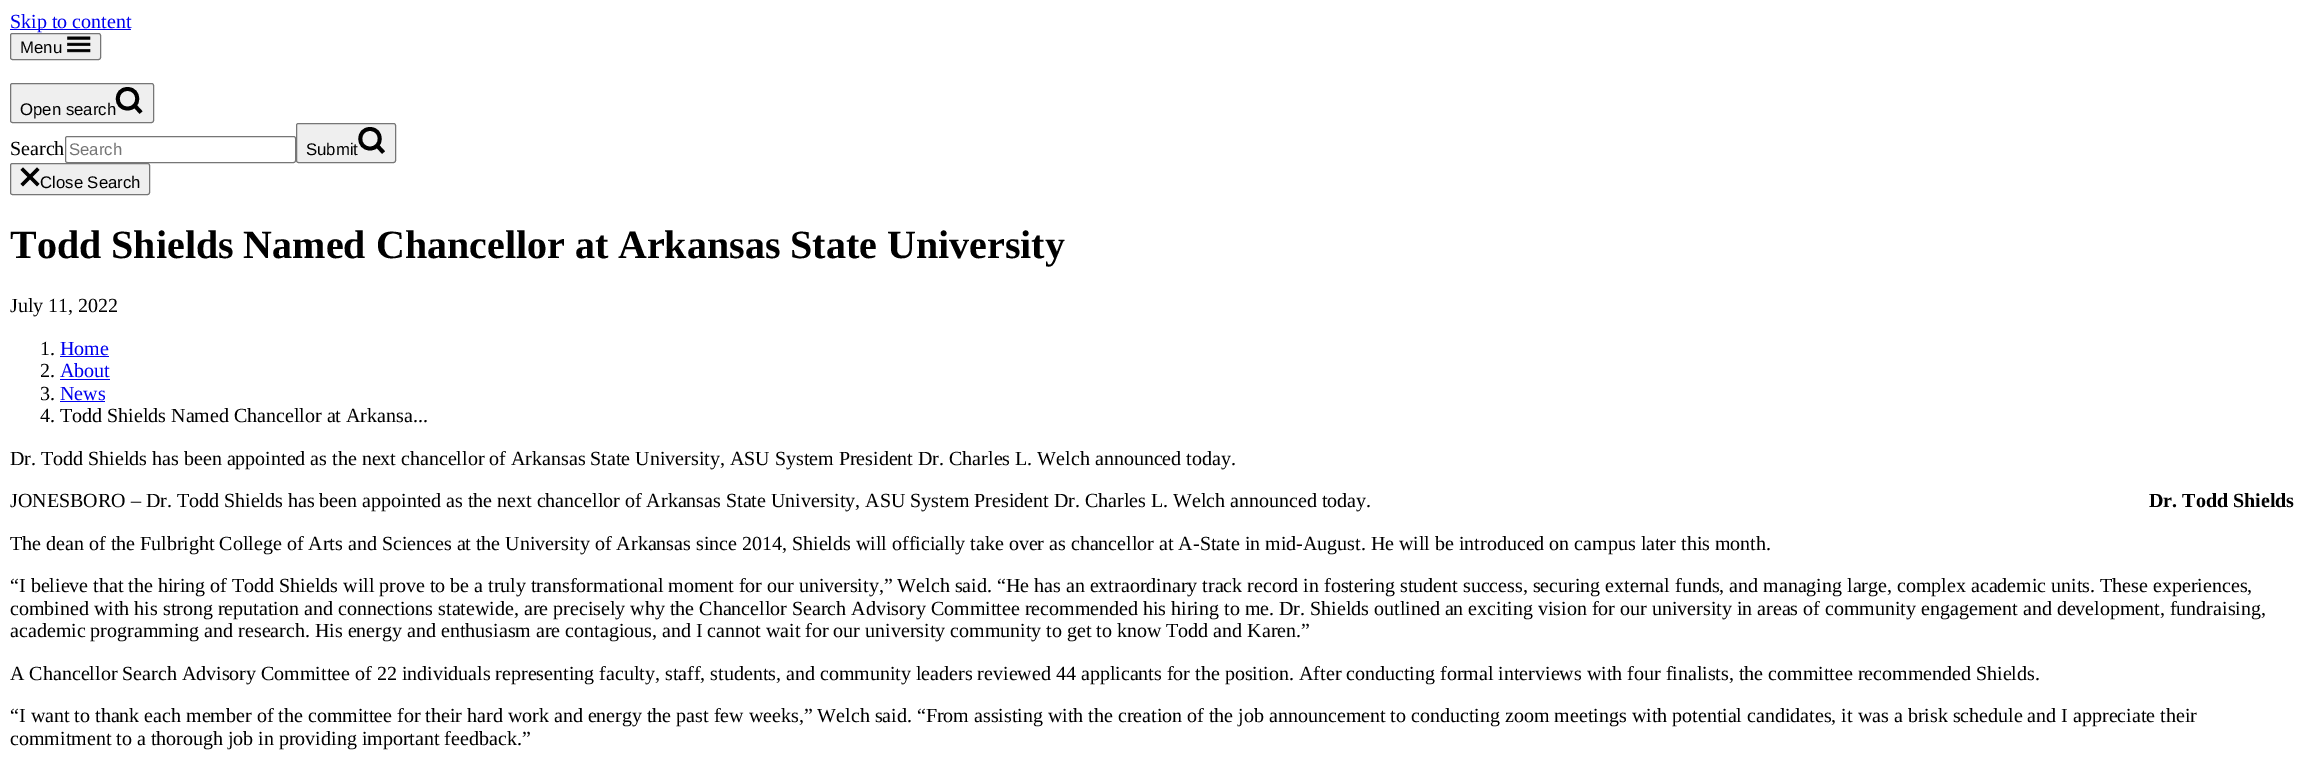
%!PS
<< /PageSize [2303 776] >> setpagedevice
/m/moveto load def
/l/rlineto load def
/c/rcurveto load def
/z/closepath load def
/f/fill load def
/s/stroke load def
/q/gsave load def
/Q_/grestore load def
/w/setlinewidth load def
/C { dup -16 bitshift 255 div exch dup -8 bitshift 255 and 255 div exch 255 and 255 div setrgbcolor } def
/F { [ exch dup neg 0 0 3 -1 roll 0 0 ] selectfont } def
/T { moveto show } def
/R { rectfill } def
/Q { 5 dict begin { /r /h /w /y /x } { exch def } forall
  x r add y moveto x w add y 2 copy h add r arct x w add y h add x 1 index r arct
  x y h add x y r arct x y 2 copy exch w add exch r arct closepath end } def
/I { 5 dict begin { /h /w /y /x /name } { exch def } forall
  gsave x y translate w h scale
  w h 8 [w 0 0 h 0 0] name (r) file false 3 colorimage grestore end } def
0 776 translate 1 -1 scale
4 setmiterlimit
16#FFFFFF C
0 0 2303 776 R
16#0000EE C
10 29 121 1 R
/LiberationSerif-Regular 20 F
(Skip to content) 10 28 T
16#EFEFEF C
10.5 33.5 90 26 2 Q q f Q_
16#767676 C
s
/LiberationSans-Regular 16.75 F
16#000000 C
(Menu) 20 53 T
(1.rgb) 67 36 24 17 I
16#EFEFEF C
10.5 83.5 143 39 2 Q q f Q_
16#767676 C
s
16#000000 C
(Open search) 20 115 T
3.8 w
127.5 108.5 m 13 0 13 -19.5 0 -19.5 c -13 0 -13 19.5 0 19.5 c z 141 112.5 m -6.5 -7 l s
/LiberationSerif-Regular 20 F
(Search) 10 155 T
16#767676 C
1 w
65.5 136.5 230 26 2 Q s
/LiberationSans-Regular 16.75 F
16#757575 C
(Search) 69 155 T
16#EFEFEF C
296.5 123.5 99 39 2 Q q f Q_
16#767676 C
s
16#000000 C
(Submit) 306 155 T
3.8 w
370 148.5 m 13 0 13 -19.5 0 -19.5 c -13 0 -13 19.5 0 19.5 c z 383.5 152.5 m -6.5 -7 l s
16#EFEFEF C
10.5 163.5 139 31 2 Q q f Q_
16#767676 C
1 w
s
(2.rgb) 20 167 20 20 I
16#000000 C
(Close Search) 40 188 T
/LiberationSerif-Bold 40 F
(Todd Shields Named Chancellor at Arkansas State University) 10 258 T
/LiberationSerif-Regular 20 F
(July 11, 2022) 10 312 T
(1.) 40 355 T
16#0000EE C
(Home) 60 355 T
60 356 49 1 R
16#000000 C
(2.) 40 377 T
16#0000EE C
(About) 60 377 T
60 379 50 1 R
16#000000 C
(3.) 40 400 T
16#0000EE C
(News) 60 400 T
60 401 45 1 R
16#000000 C
(4. Todd Shields Named Chancellor at Arkansa...) 40 422 T
(Dr. Todd Shields has been appointed as the next chancellor of Arkansas State University, ASU System President Dr. Charles L. Welch announced today.) 10 465 T
(JONESBORO – Dr. Todd Shields has been appointed as the next chancellor of Arkansas State University, ASU System President Dr. Charles L. Welch announced today.) 10 507 T
/LiberationSerif-Bold 20 F
(Dr. Todd Shields) 2149 507 T
/LiberationSerif-Regular 20 F
(The dean of the Fulbright College of Arts and Sciences at the University of Arkansas since 2014, Shields will officially take over as chancellor at A-State in mid-August. He will be introduced on campus later this month.) 10 550 T
(“I believe that the hiring of Todd Shields will prove to be a truly transformational moment for our university,” Welch said. “He has an extraordinary track record in fostering student success, securing external funds, and managing large, complex academic units. These experiences,) 10 592 T
(combined with his strong reputation and connections statewide, are precisely why the Chancellor Search Advisory Committee recommended his hiring to me. Dr. Shields outlined an exciting vision for our university in areas of community engagement and development, fundraising,) 10 615 T
(academic programming and research. His energy and enthusiasm are contagious, and I cannot wait for our university community to get to know Todd and Karen.”) 10 637 T
(A Chancellor Search Advisory Committee of 22 individuals representing faculty, staff, students, and community leaders reviewed 44 applicants for the position. After conducting formal interviews with four finalists, the committee recommended Shields.) 10 680 T
(“I want to thank each member of the committee for their hard work and energy the past few weeks,” Welch said. “From assisting with the creation of the job announcement to conducting zoom meetings with potential candidates, it was a brisk schedule and I appreciate their) 10 722 T
(commitment to a thorough job in providing important feedback.”) 10 745 T
showpage
